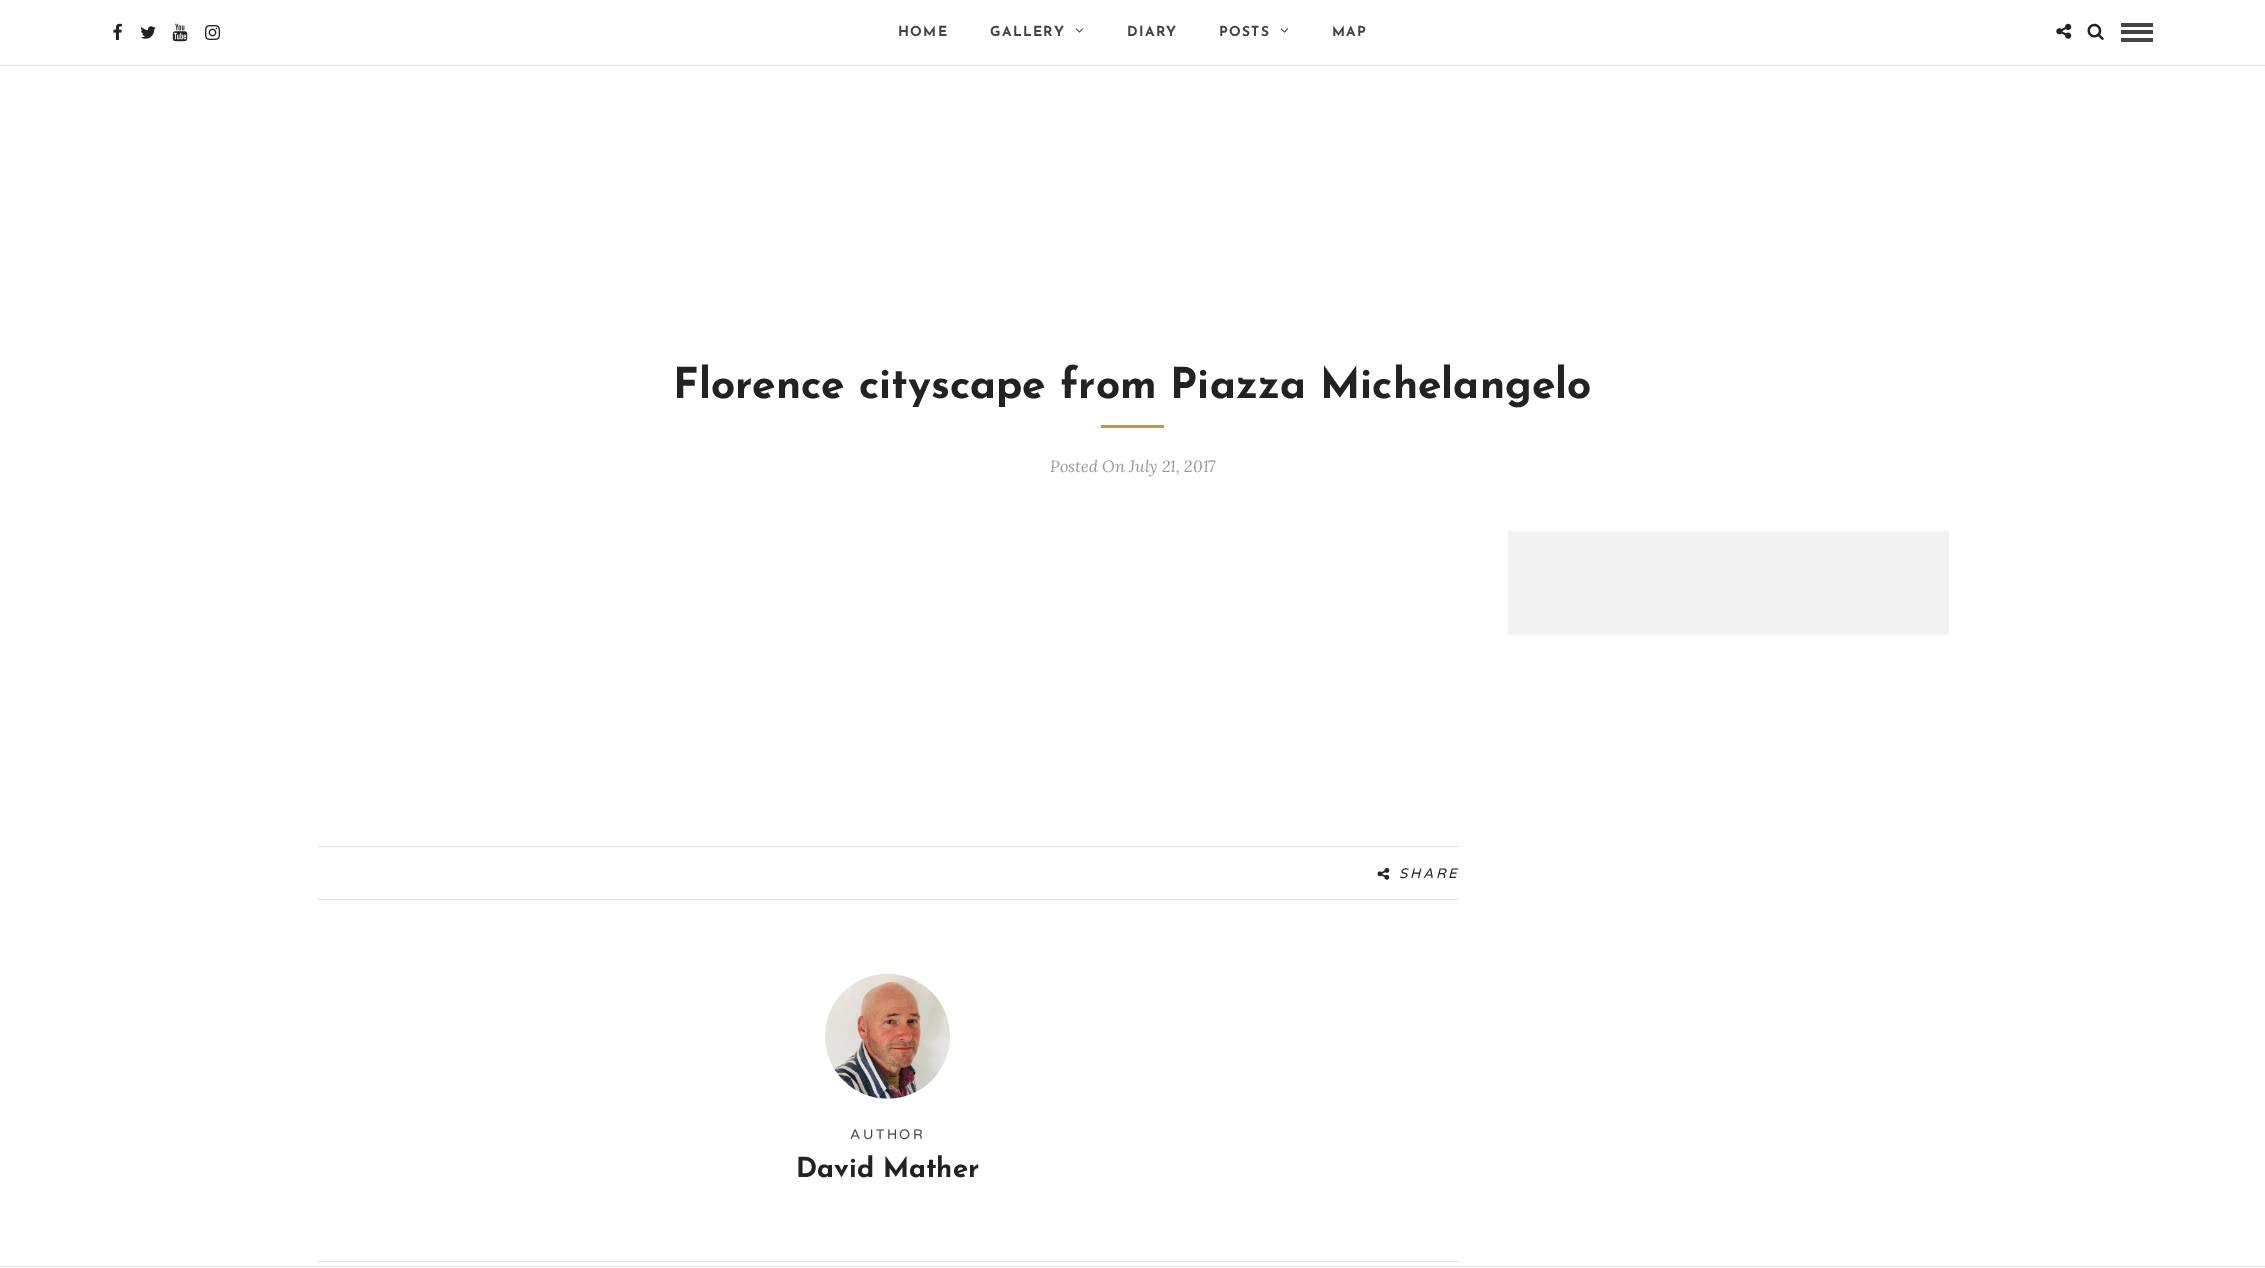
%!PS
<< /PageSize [2265 1268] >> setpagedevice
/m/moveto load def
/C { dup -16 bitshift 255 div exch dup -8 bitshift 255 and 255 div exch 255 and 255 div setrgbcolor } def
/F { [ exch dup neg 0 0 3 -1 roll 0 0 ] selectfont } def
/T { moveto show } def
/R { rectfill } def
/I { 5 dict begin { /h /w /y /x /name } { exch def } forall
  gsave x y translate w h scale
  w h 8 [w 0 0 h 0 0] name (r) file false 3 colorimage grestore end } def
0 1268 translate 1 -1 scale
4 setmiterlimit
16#FFFFFF C
0 0 2265 1268 R
16#E1E1E1 C
0 65 2265 1 R
(1.rgb) 113 23 9 17 I
(2.rgb) 140 26 16 13 I
(3.rgb) 172 23 16 19 I
(4.rgb) 205 25 15 15 I
/JosefinSans-Bold 13.75 F
16#444444 C
898 36 m 1.25 0 (HOME) ashow
990 36 m 1.25 0 (GALLERY) ashow
(5.rgb) 1075 28 9 5 I
1127 36 m 1.25 0 (DIARY) ashow
1219 36 m 1.25 0 (POSTS) ashow
(5.rgb) 1280 28 9 5 I
1332 36 m 1.25 0 (MAP) ashow
(6.rgb) 2056 23 16 16 I
(7.rgb) 2087 23 17 17 I
2121 23 32 4 R
2121 30 32 4 R
2121 38 32 4 R
/JosefinSans-Bold 42.5 F
16#222222 C
(Florence cityscape from Piazza Michelangelo) 673 398 T
16#BE9656 C
1101 425 63 3 R
/Lora-Italic 16.25 F
16#999999 C
(Posted On July 21, 2017) 1050 472 T
16#F2F2F2 C
1508 531 441 104 R
16#E1E1E1 C
318 846 1141 1 R
(8.rgb) 1377 868 13 12 I
/VarelaRound-Italic 13.75 F
16#222222 C
1399 878 m 2.5 0 (SHARE) ashow
16#E1E1E1 C
318 899 1141 1 R
318 1261 1141 1 R
(9.rgb) 825 974 125 125 I
/VarelaRound-Regular 13.75 F
16#444444 C
850 1139 m 2.5 0 (AUTHOR) ashow
/JosefinSans-Bold 27.5 F
16#222222 C
(David Mather) 796 1177 T
16#E1E1E1 C
0 1266 2265 1 R
showpage
